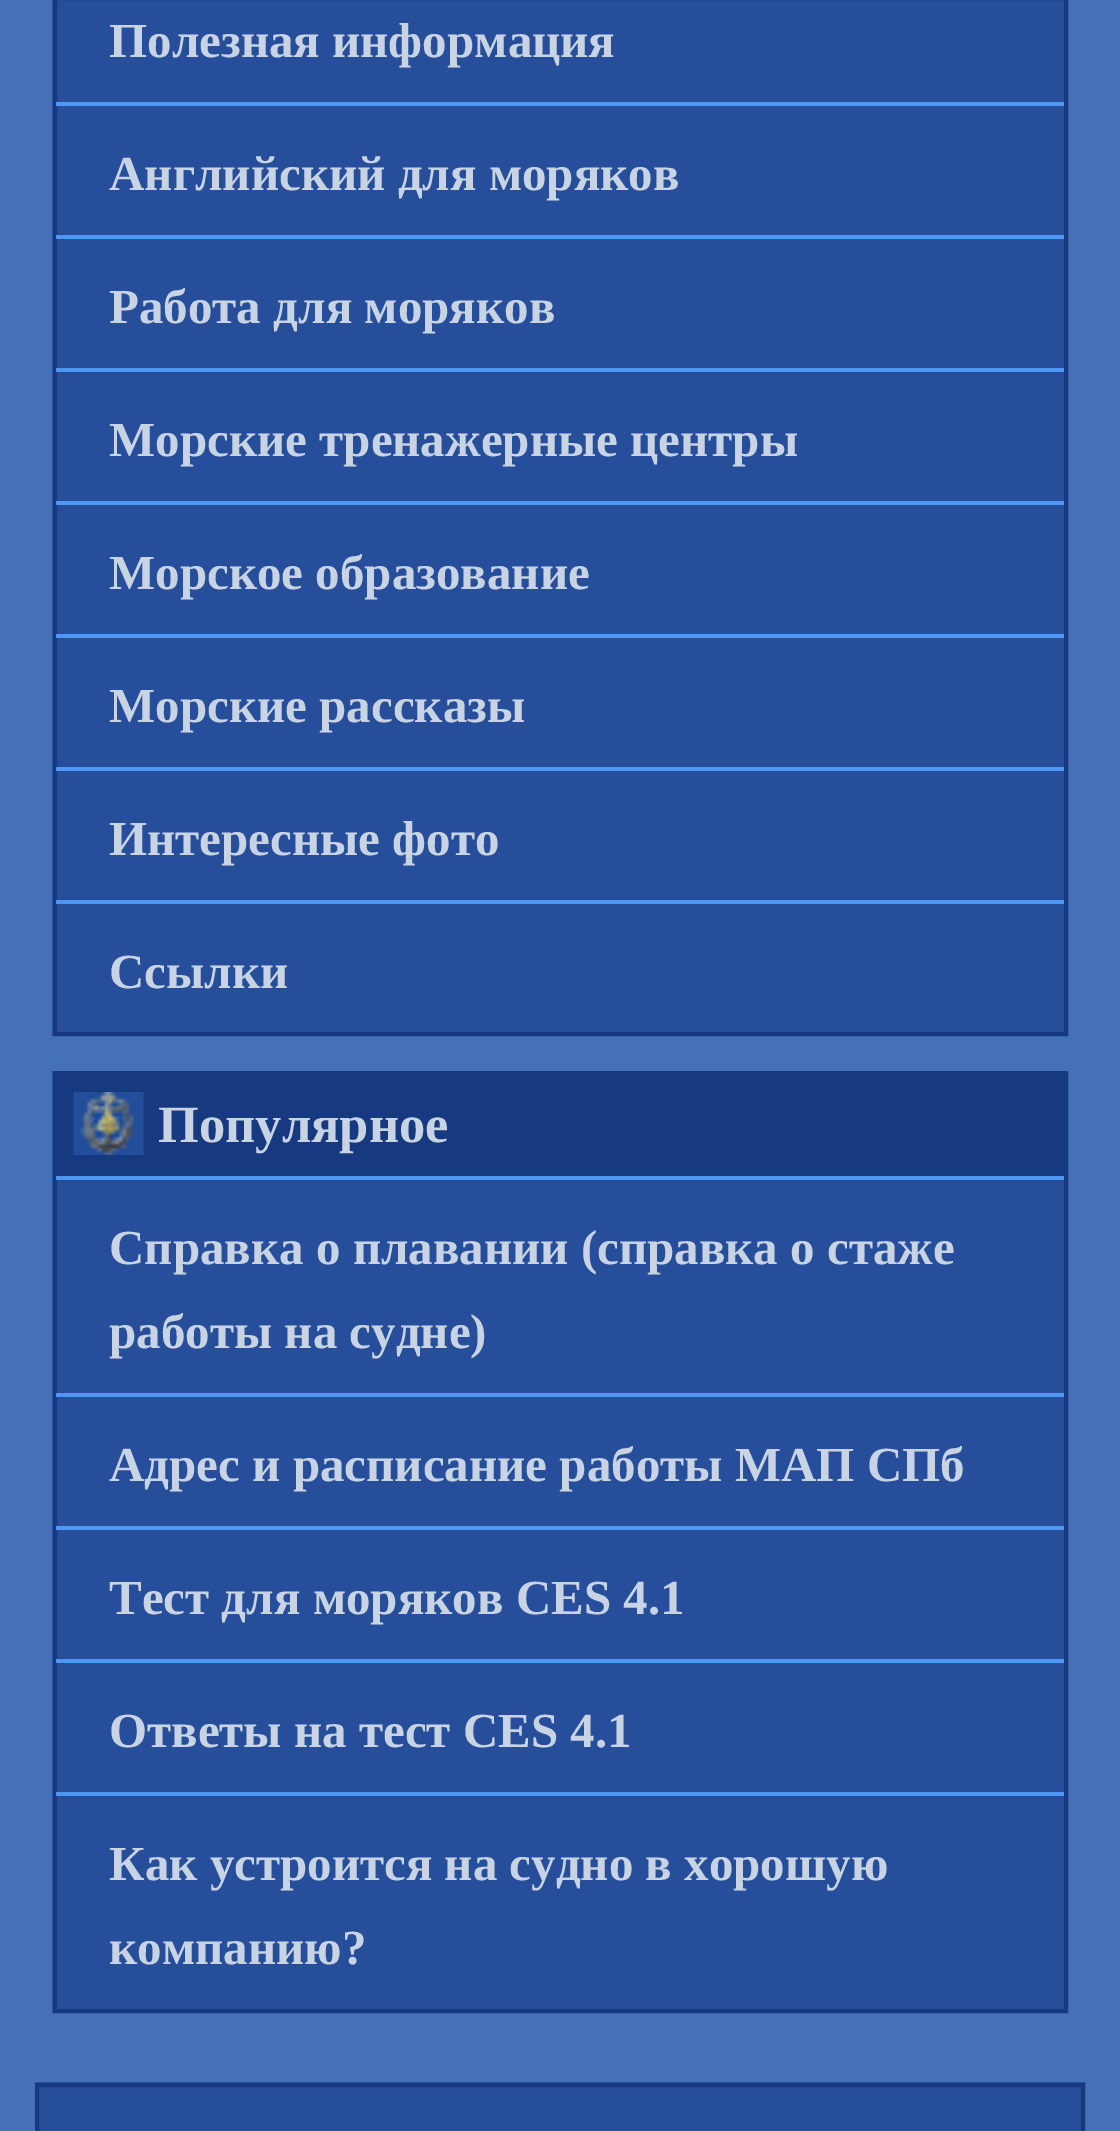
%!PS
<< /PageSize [1120 2131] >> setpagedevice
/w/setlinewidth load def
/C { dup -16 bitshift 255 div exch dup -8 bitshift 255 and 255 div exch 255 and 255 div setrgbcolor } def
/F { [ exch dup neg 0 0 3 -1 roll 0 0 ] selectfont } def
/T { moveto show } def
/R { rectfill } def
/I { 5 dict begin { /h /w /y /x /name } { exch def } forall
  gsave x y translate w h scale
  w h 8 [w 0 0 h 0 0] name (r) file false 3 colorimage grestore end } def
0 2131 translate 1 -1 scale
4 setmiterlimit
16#4471B8 C
0 0 1120 2131 R
16#274E9B C
52 0 1012 1036 R
16#173980 C
4 w
55 -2 1011 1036 rectstroke
/LiberationSerif-Bold 49 F
16#C8D3E4 C
(Полезная информация) 109 57 T
16#4E97F4 C
56 102 1008 4 R
16#C8D3E4 C
(Английский для моряков) 109 190 T
16#4E97F4 C
56 235 1008 4 R
16#C8D3E4 C
(Работа для моряков) 109 323 T
16#4E97F4 C
56 368 1008 4 R
16#C8D3E4 C
(Морские тренажерные центры) 109 456 T
16#4E97F4 C
56 501 1008 4 R
16#C8D3E4 C
(Морское образование) 109 589 T
16#4E97F4 C
56 634 1008 4 R
16#C8D3E4 C
(Морские рассказы) 109 722 T
16#4E97F4 C
56 767 1008 4 R
16#C8D3E4 C
(Интересные фото) 109 855 T
16#4E97F4 C
56 900 1008 4 R
16#C8D3E4 C
(Ссылки) 109 988 T
16#274E9B C
52 1071 1012 942 R
16#173980 C
55 1073 1011 938 rectstroke
57 1075 1007 98 R
(1.rgb) 73 1092 71 63 I
56 1173 1008 3 R
/LiberationSerif-Bold 52.5 F
16#C8D3E4 C
(Популярное) 158 1142 T
16#4E97F4 C
56 1176 1008 4 R
/LiberationSerif-Bold 49 F
16#C8D3E4 C
(Справка о плавании \(справка о стаже) 109 1264 T
(работы на судне\)) 109 1348 T
16#4E97F4 C
56 1393 1008 4 R
16#C8D3E4 C
(Адрес и расписание работы МАП СПб) 109 1481 T
16#4E97F4 C
56 1526 1008 4 R
16#C8D3E4 C
(Тест для моряков CES 4.1) 109 1614 T
16#4E97F4 C
56 1659 1008 4 R
16#C8D3E4 C
(Ответы на тест CES 4.1) 109 1747 T
16#4E97F4 C
56 1792 1008 4 R
16#C8D3E4 C
(Как устроится на судно в хорошую) 109 1880 T
(компанию?) 109 1964 T
16#274E9B C
35 2082 1050 49 R
16#173980 C
37 2085 1046 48 rectstroke
showpage
